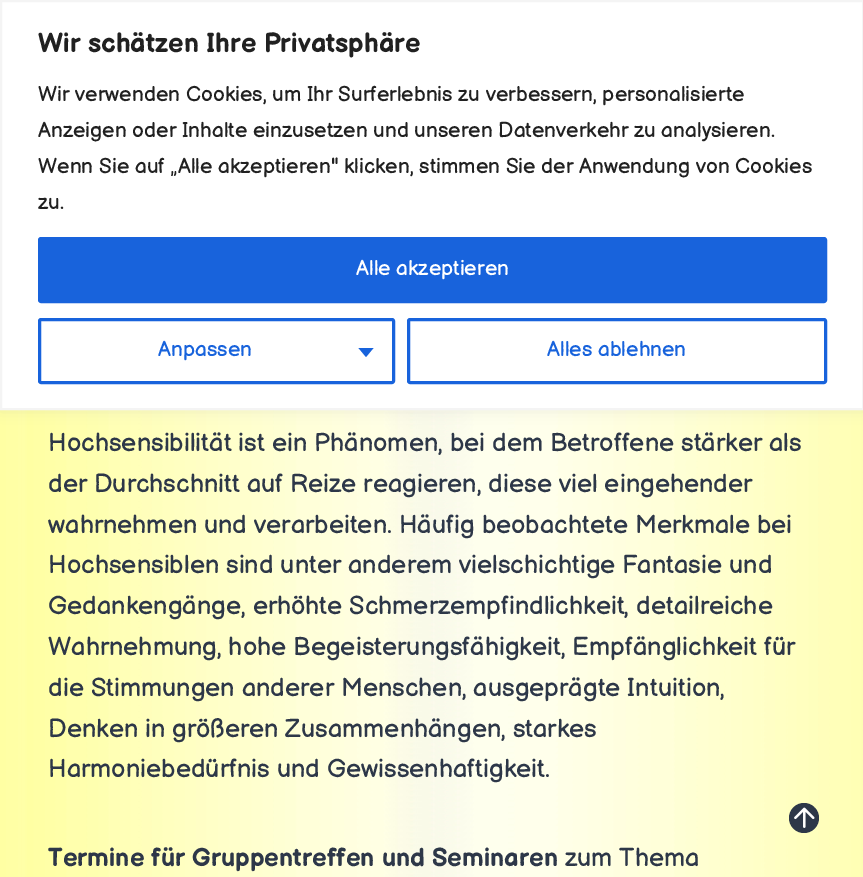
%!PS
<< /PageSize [863 877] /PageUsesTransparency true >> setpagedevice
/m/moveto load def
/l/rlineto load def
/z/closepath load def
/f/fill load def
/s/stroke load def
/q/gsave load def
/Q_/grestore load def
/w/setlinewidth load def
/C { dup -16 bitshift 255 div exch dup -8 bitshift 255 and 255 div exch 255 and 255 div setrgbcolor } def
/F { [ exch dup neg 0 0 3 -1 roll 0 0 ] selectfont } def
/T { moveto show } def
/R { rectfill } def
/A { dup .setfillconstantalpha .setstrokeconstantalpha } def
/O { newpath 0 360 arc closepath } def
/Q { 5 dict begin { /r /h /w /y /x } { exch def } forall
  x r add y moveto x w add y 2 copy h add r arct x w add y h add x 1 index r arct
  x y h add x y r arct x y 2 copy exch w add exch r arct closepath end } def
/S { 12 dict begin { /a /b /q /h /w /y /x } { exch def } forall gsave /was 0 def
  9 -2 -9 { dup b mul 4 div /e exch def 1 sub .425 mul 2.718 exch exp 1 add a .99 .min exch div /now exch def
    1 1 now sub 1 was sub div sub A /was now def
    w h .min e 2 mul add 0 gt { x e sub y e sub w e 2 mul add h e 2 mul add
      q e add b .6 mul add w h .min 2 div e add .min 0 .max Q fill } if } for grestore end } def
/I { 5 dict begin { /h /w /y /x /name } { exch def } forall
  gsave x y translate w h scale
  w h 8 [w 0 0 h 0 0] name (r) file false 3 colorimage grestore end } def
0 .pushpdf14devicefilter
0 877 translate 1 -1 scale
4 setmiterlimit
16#FFFFFF C
0 0 863 877 R
(1.rgb) 0 410 863 467 I
16#ACABAB C
0 -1 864 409 0 7.5 .3 S
16#FFFFFF C
1 1 m 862 0 l 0 408 l -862 0 l z q f Q_
16#F4F4F4 C
2 w
s
/BalsamiqSans-Bold 27 F
16#212121 C
(Wir schätzen Ihre Privatsphäre) 38 52 T
/BalsamiqSans-Regular 21 F
(Wir verwenden Cookies, um Ihr Surferlebnis zu verbessern, personalisierte) 38 101 T
(Anzeigen oder Inhalte einzusetzen und unseren Datenverkehr zu analysieren.) 38 137 T
(Wenn Sie auf „Alle akzeptieren" klicken, stimmen Sie der Anwendung von Cookies) 38 173 T
(zu.) 38 209 T
16#1863DC C
39.5 238.5 786 63 1.5 Q q f Q_
3 w
s
16#FFFFFF C
(Alle akzeptieren) 356 275 T
16#1863DC C
39.5 319.5 354 63 1.5 Q s
(Anpassen) 158 356 T
358.5 348 m 15 0 l -7.5 9 l z f
408.5 319.5 417 63 1.5 Q s
(Alles ablehnen) 547 356 T
/BalsamiqSans-Regular 25.5 F
16#2D3748 C
(Hochsensibilität ist ein Phänomen, bei dem Betroffene stärker als) 48 451 T
(der Durchschnitt auf Reize reagieren, diese viel eingehender) 48 492 T
(wahrnehmen und verarbeiten. Häufig beobachtete Merkmale bei) 48 533 T
(Hochsensiblen sind unter anderem vielschichtige Fantasie und) 48 573 T
(Gedankengänge, erhöhte Schmerzempfindlichkeit, detailreiche) 48 614 T
(Wahrnehmung, hohe Begeisterungsfähigkeit, Empfänglichkeit für) 48 655 T
(die Stimmungen anderer Menschen, ausgeprägte Intuition,) 48 696 T
(Denken in größeren Zusammenhängen, starkes) 48 737 T
(Harmoniebedürfnis und Gewissenhaftigkeit.) 48 777 T
/BalsamiqSans-Bold 25.5 F
(Termine für Gruppentreffen und Seminaren) 48 866 T
/BalsamiqSans-Regular 25.5 F
(zum Thema) 565 866 T
804 818 15 O f
(2.rgb) 794 807 21 21 I
.poppdf14devicefilter showpage
